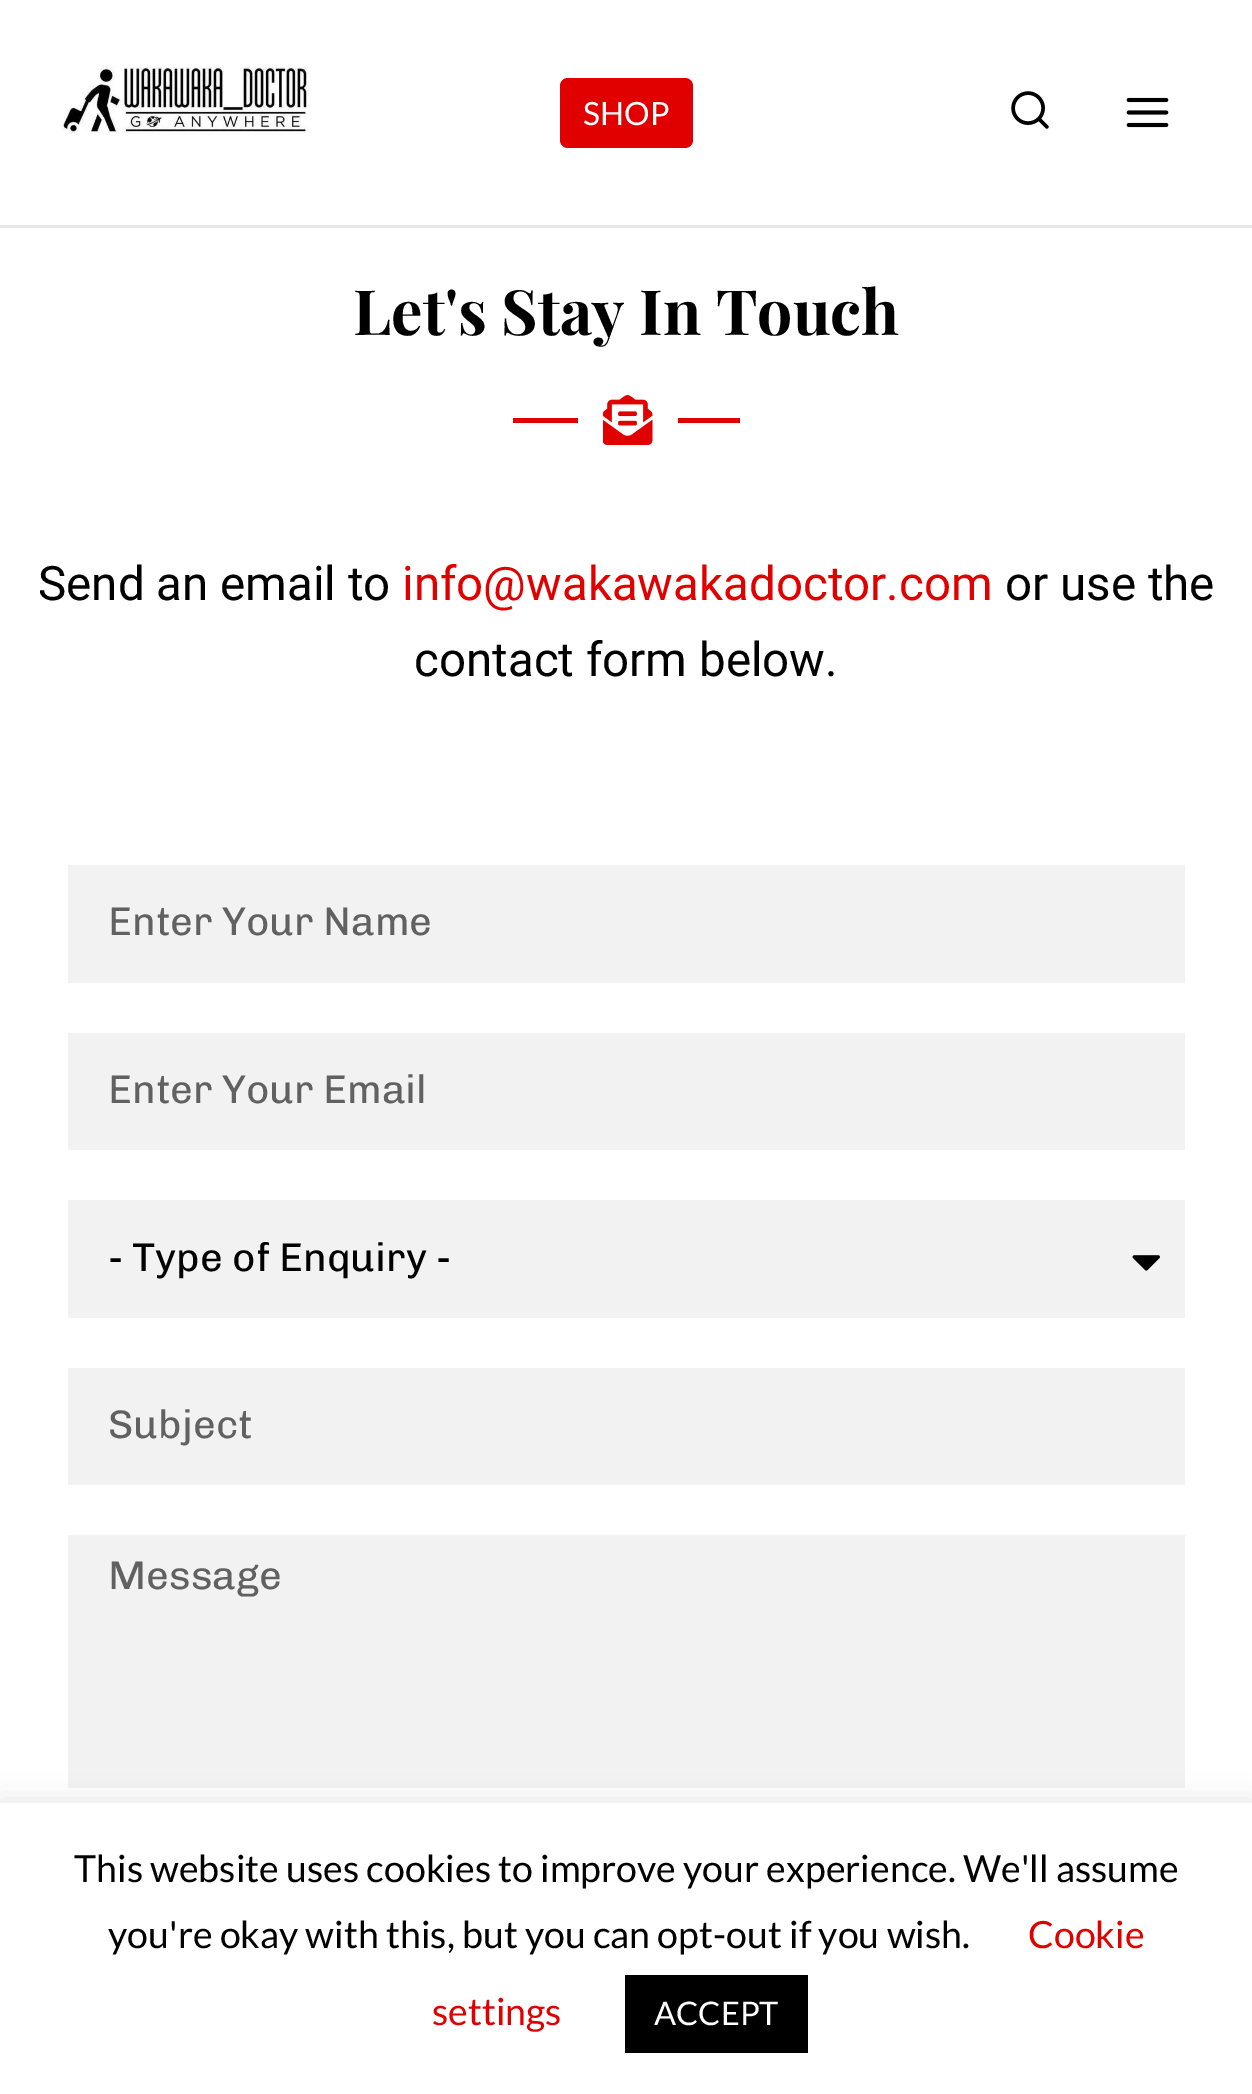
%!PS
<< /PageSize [1252 2094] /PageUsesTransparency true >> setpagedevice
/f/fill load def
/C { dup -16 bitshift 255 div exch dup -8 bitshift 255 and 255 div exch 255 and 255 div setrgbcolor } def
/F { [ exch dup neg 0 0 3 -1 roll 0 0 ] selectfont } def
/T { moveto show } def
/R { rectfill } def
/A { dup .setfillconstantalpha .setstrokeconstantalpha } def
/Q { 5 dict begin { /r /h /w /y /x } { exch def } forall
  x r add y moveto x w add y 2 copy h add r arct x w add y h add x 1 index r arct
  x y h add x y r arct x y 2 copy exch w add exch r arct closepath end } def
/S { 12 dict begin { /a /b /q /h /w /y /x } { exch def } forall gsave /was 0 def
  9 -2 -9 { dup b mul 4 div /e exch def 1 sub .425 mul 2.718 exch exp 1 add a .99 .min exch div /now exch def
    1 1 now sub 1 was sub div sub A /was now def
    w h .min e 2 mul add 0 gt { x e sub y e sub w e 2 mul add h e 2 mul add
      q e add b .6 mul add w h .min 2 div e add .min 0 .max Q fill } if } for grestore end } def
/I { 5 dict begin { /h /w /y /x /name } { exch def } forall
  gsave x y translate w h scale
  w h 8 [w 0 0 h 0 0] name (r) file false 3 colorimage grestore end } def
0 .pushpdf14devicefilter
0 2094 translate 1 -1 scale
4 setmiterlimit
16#FFFFFF C
0 0 1252 2094 R
16#E6E6E6 C
0 225 1252 3 R
(1.rgb) 62 66 248 69 I
16#E00000 C
560 78 133 70 8 Q f
/Lato-Regular 32 F
16#FFFFFF C
(SHOP) 583 125 T
(2.rgb) 1011 91 38 38 I
(3.rgb) 1126 97 43 31 I
/PlayfairDisplay-Bold 62.5 F
16#000000 C
(Let's Stay In Touch) 353 335 T
16#E00000 C
513 418 65 5 R
(4.rgb) 603 395 50 50 I
678 418 62 5 R
/Roboto-Regular 47.5 F
16#000000 C
(Send an email to) 38 600 T
16#E00000 C
(info@wakawakadoctor.com) 402 600 T
16#000000 C
(or use the) 1005 600 T
(contact form below.) 414 676 T
16#F2F2F2 C
68 865 1117 118 R
/Chivo-Regular 40 F
16#616161 C
(Enter Your Name) 108 935 T
16#F2F2F2 C
68 1033 1117 117 R
16#616161 C
(Enter Your Email) 108 1103 T
16#F2F2F2 C
68 1200 1117 118 R
16#000000 C
(- Type of Enquiry -) 108 1271 T
(5.rgb) 1132 1255 28 16 I
16#F2F2F2 C
68 1368 1117 117 R
16#616161 C
(Subject) 108 1438 T
16#F2F2F2 C
68 1535 1117 253 R
16#616161 C
(Message) 108 1589 T
16#ACABAB C
0 1800 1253 293 0 12.5 .3 S
16#FFFFFF C
0 1803 1252 291 R
/Lato-Regular 37.5 F
16#000000 C
(This website uses cookies to improve your experience. We'll assume) 74 1882 T
(you're okay with this, but you can opt-out if you wish.) 108 1948 T
16#E00000 C
(Cookie) 1028 1948 T
(settings) 432 2025 T
16#000000 C
625 1975 183 78 R
/Lato-Regular 32.5 F
16#FFFFFF C
(ACCEPT) 654 2025 T
.poppdf14devicefilter showpage
